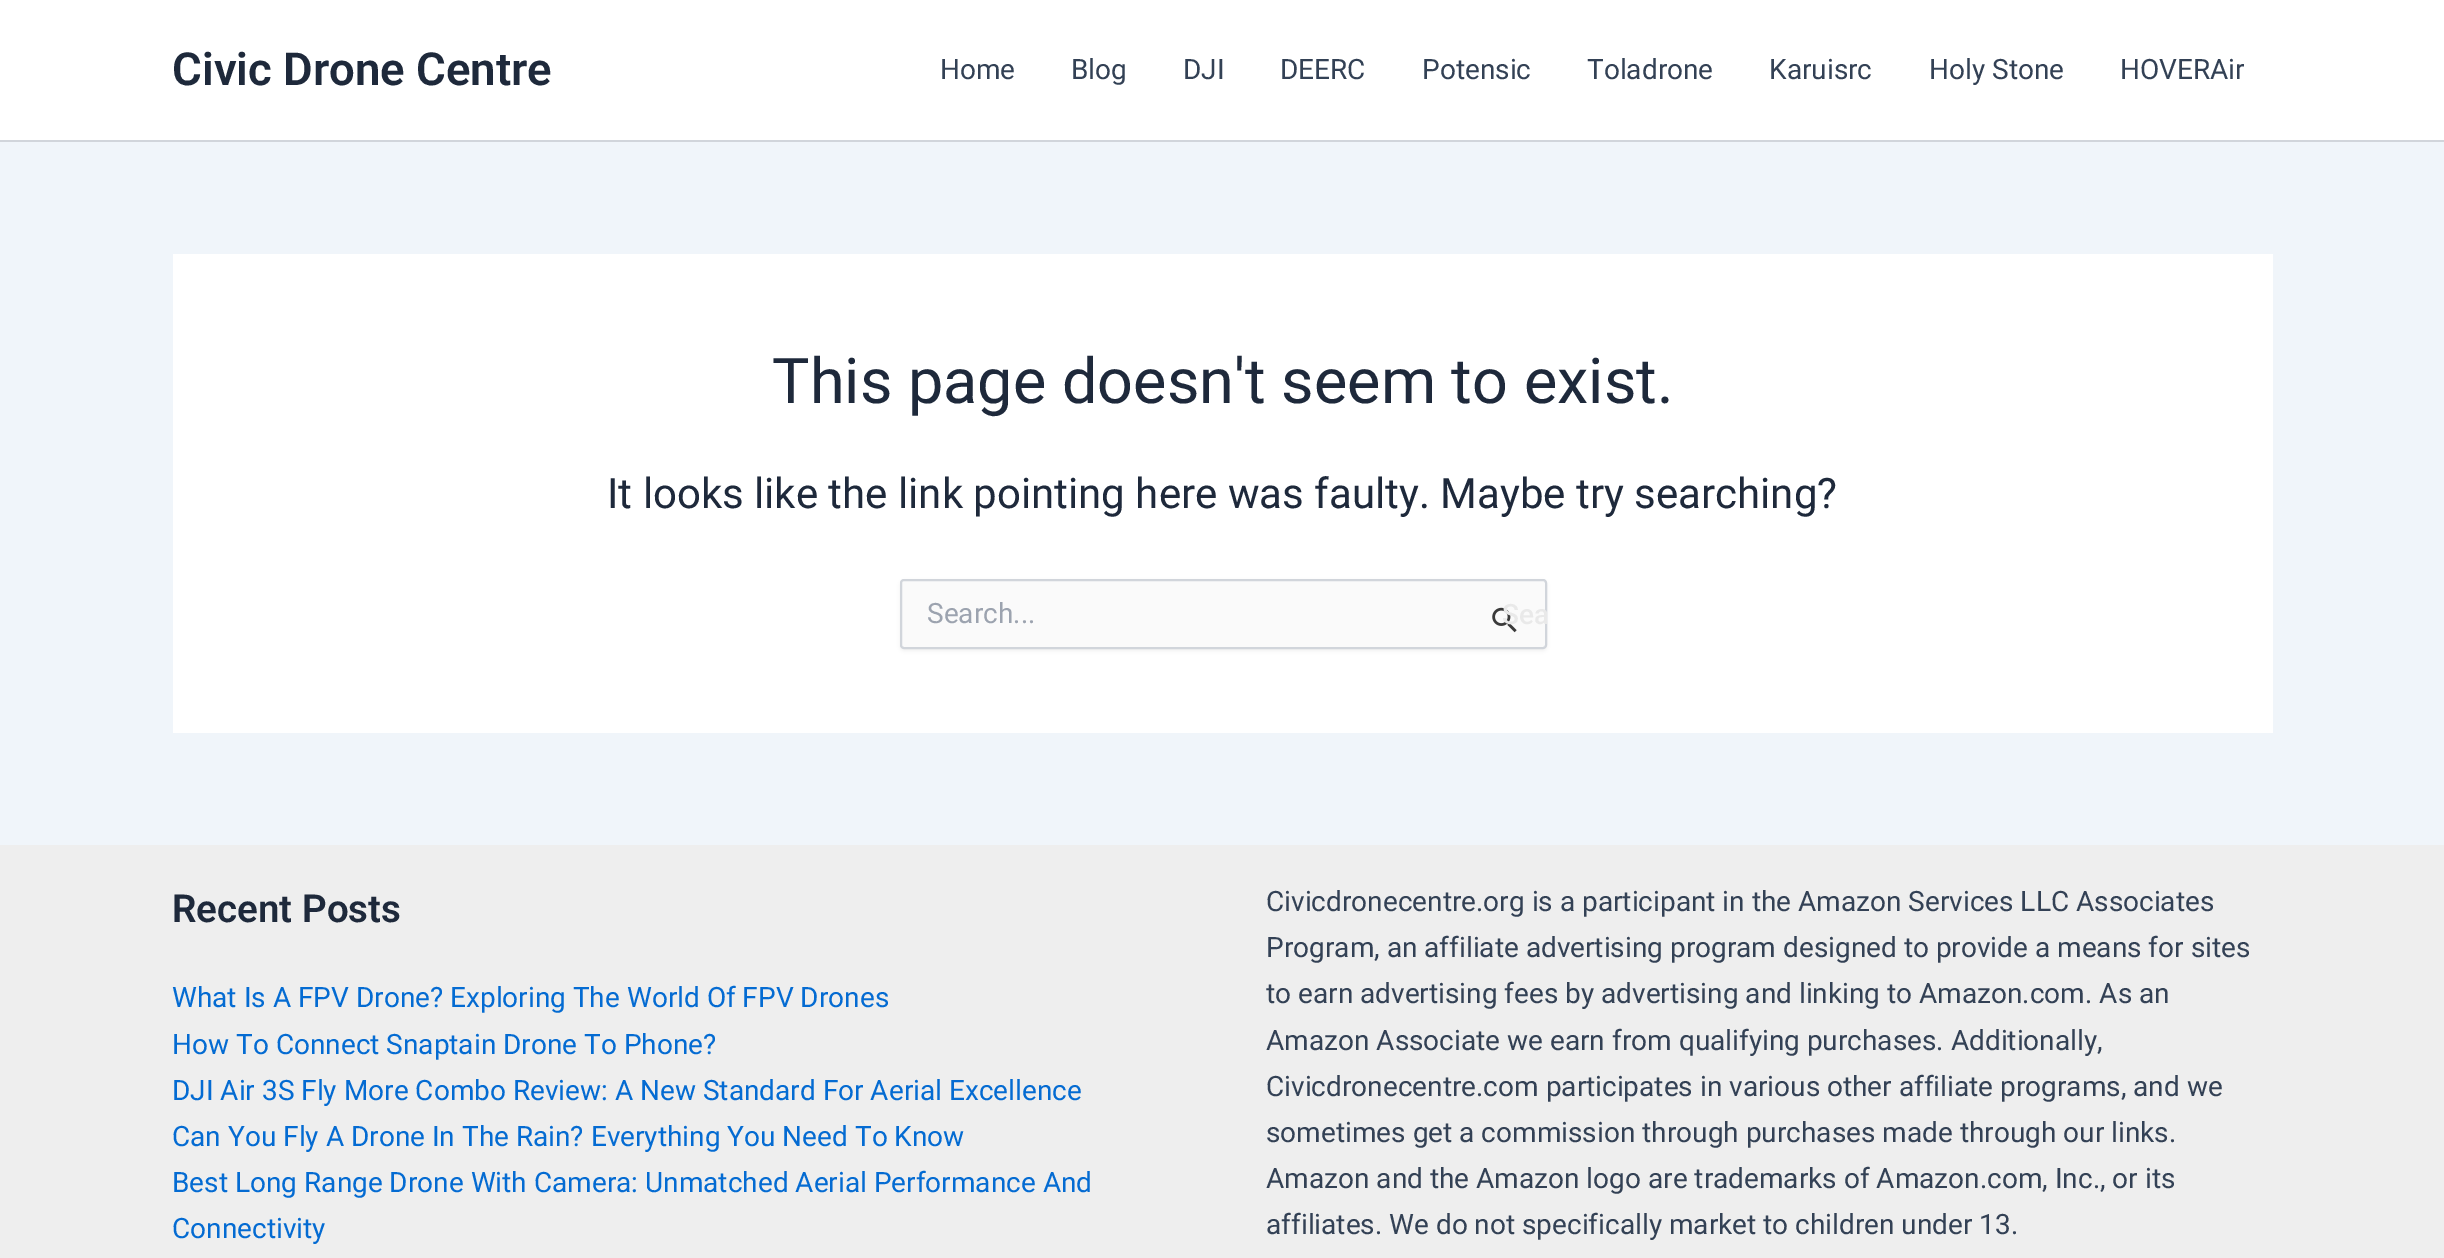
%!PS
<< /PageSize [2444 1258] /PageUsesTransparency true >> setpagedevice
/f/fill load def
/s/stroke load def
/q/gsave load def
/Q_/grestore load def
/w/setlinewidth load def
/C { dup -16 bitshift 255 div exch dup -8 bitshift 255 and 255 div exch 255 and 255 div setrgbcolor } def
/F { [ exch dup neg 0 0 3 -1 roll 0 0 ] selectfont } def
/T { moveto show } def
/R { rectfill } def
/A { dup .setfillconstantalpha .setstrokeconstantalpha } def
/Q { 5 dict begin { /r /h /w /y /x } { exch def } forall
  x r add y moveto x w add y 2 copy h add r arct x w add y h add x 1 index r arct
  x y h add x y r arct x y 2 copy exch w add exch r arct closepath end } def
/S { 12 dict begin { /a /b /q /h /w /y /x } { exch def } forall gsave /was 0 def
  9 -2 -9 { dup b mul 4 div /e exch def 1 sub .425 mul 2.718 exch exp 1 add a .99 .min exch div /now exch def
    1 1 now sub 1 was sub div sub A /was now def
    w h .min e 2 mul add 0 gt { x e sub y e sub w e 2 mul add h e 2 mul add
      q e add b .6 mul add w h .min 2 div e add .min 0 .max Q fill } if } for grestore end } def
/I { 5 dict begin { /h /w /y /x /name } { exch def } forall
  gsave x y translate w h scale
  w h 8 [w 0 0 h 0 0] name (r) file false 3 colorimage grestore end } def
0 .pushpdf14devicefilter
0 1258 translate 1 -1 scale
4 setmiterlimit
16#F0F5FA C
0 0 2444 1258 R
16#FFFFFF C
0 0 2444 140 R
16#D1D5DB C
0 140 2444 2 R
/Roboto-SemiBold 45.5 F
16#1E293B C
(Civic Drone Centre) 172 85 T
/Roboto-Regular 28 F
16#334155 C
(Home) 940 79 T
(Blog) 1071 79 T
(DJI) 1183 79 T
(DEERC) 1280 79 T
(Potensic) 1422 79 T
(Toladrone) 1587 79 T
(Karuisrc) 1769 79 T
(Holy Stone) 1929 79 T
(HOVERAir) 2120 79 T
16#FFFFFF C
173 254 2100 479 R
/Roboto-Regular 63 F
16#1E293B C
(This page doesn't seem to exist.) 772 403 T
/Roboto-Regular 42 F
(It looks like the link pointing here was faulty. Maybe try searching?) 607 508 T
16#000000 C
900 581 647 70 4 2 .05 S
16#FAFAFA C
901 580 645 68 3 Q q f Q_
16#D1D5DB C
2 w
s
/Roboto-Regular 28 F
16#9CA3AF C
(Search...) 927 623 T
(1.rgb) 1492 607 25 26 I
q
1468 579 79 74 4 Q clip newpath
/Roboto-Medium 28 F
16#E9E9E9 C
(Sea) 1502 624 T
Q_
16#EEEEEE C
0 845 2444 413 R
/Roboto-SemiBold 38.5 F
16#1E293B C
(Recent Posts) 172 922 T
/Roboto-Regular 28 F
16#046BD2 C
(What Is A FPV Drone? Exploring The World Of FPV Drones) 172 1007 T
(How To Connect Snaptain Drone To Phone?) 172 1054 T
(DJI Air 3S Fly More Combo Review: A New Standard For Aerial Excellence) 172 1100 T
(Can You Fly A Drone In The Rain? Everything You Need To Know) 172 1146 T
(Best Long Range Drone With Camera: Unmatched Aerial Performance And) 172 1192 T
(Connectivity) 172 1238 T
16#334155 C
(Civicdronecentre.org is a participant in the Amazon Services LLC Associates) 1266 911 T
(Program, an affiliate advertising program designed to provide a means for sites) 1266 957 T
(to earn advertising fees by advertising and linking to Amazon.com. As an) 1266 1003 T
(Amazon Associate we earn from qualifying purchases. Additionally,) 1266 1050 T
(Civicdronecentre.com participates in various other affiliate programs, and we) 1266 1096 T
(sometimes get a commission through purchases made through our links.) 1266 1142 T
(Amazon and the Amazon logo are trademarks of Amazon.com, Inc., or its) 1266 1188 T
(affiliates. We do not specifically market to children under 13.) 1266 1234 T
.poppdf14devicefilter showpage
